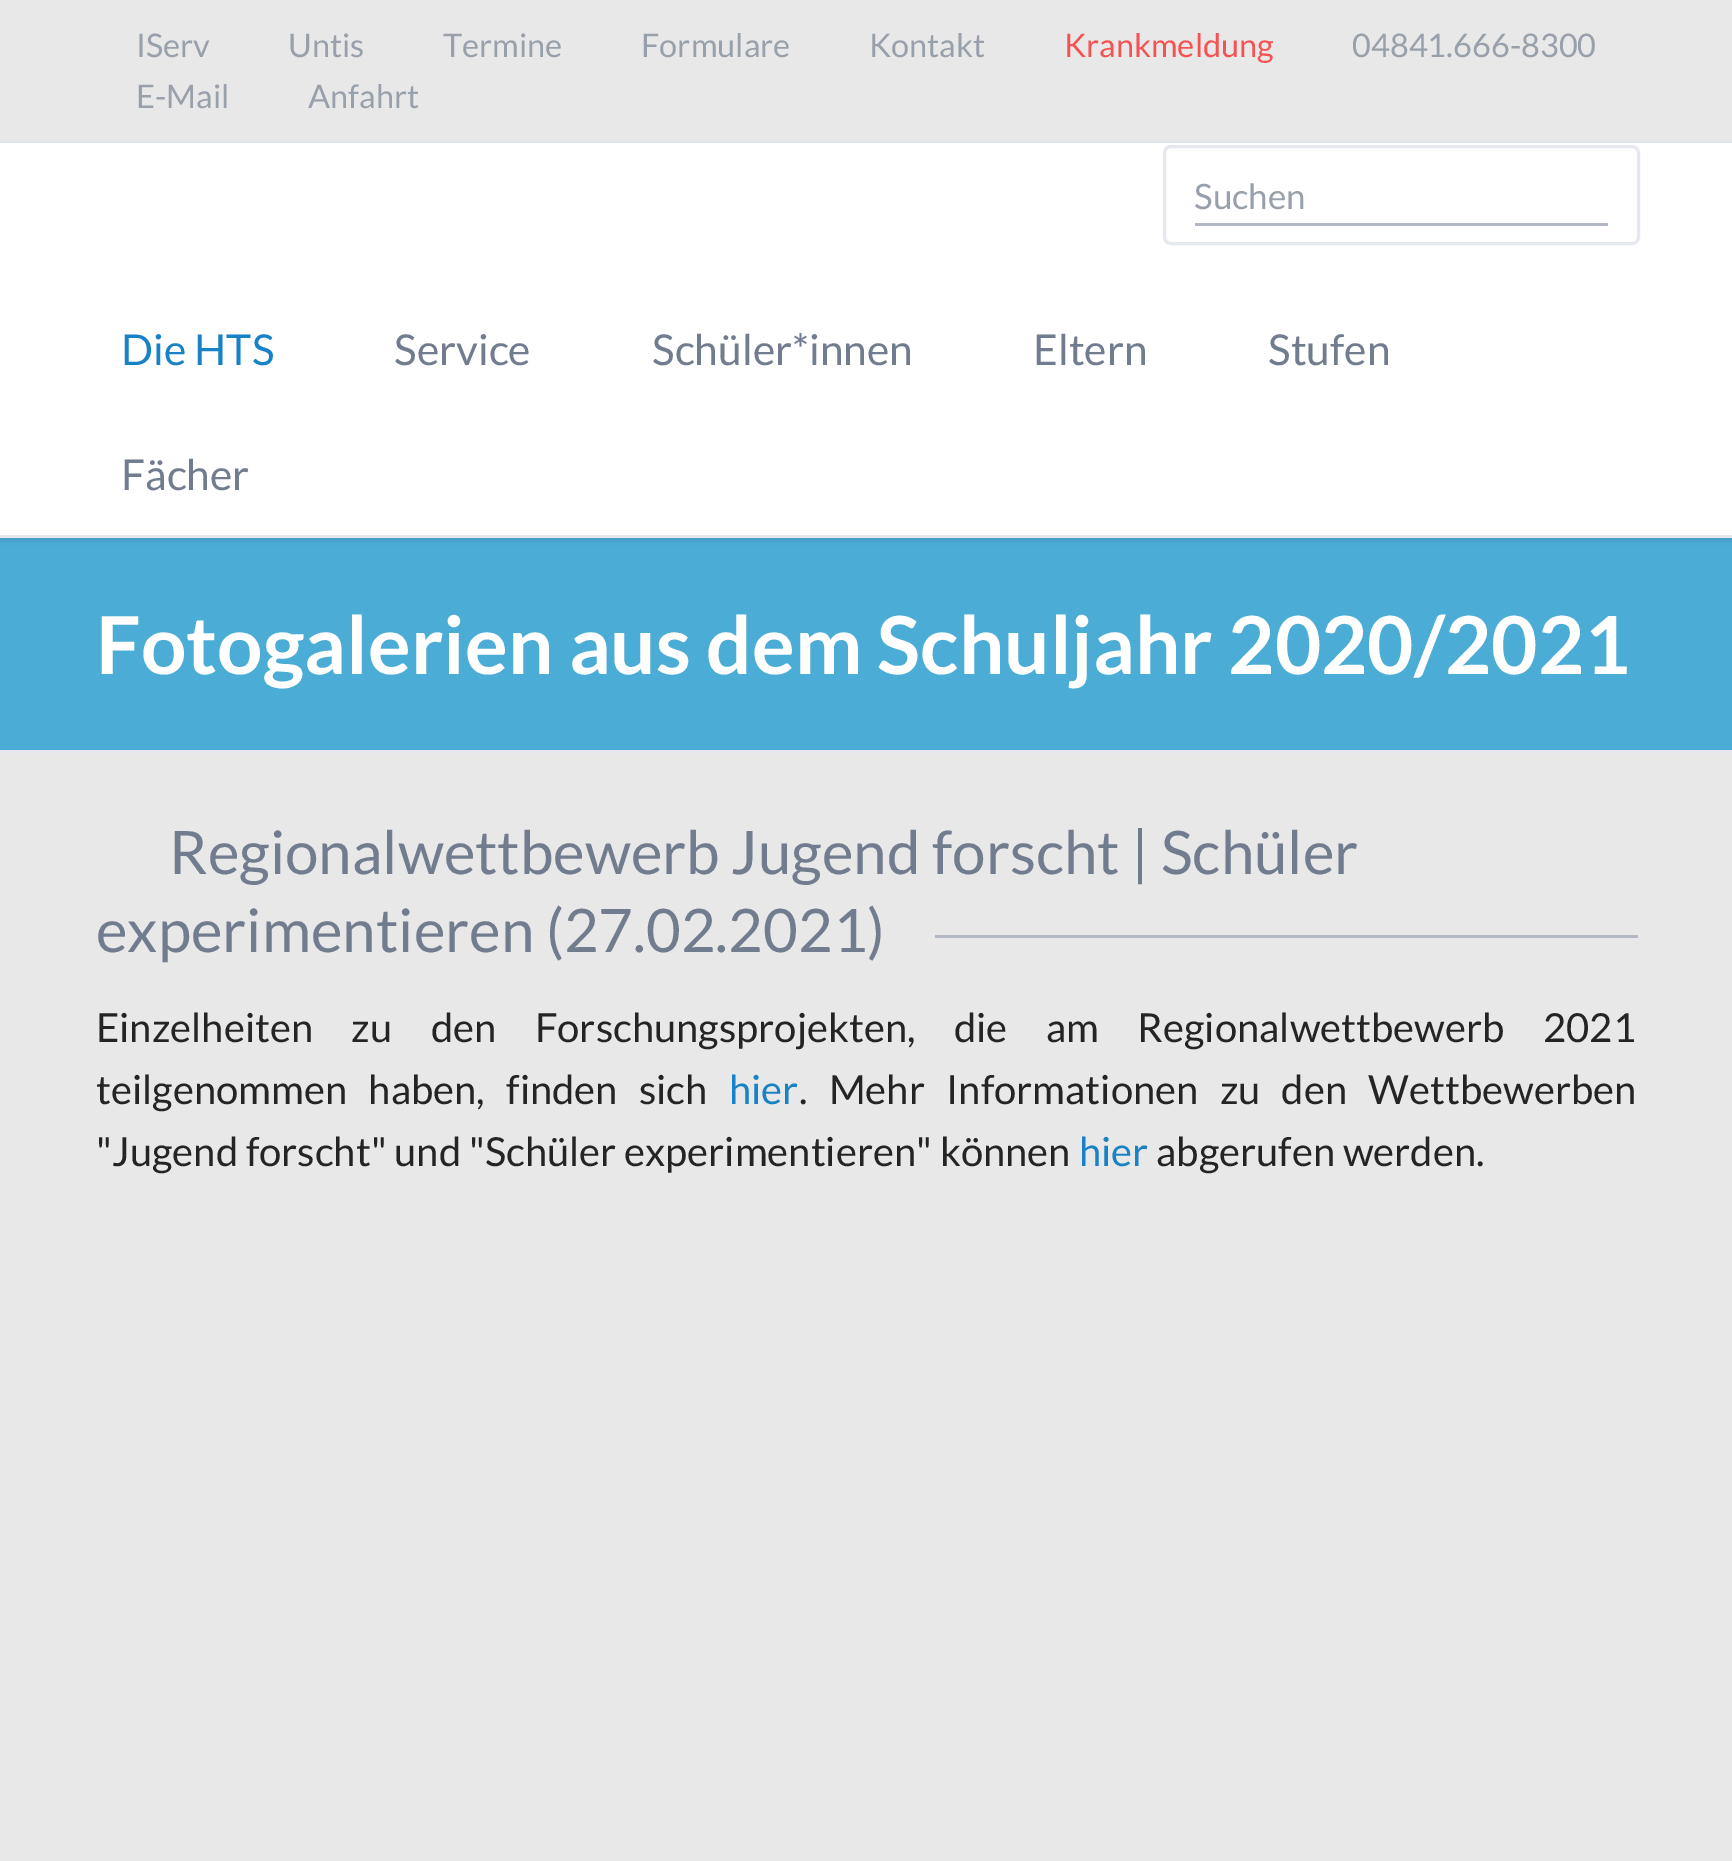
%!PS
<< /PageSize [1732 1861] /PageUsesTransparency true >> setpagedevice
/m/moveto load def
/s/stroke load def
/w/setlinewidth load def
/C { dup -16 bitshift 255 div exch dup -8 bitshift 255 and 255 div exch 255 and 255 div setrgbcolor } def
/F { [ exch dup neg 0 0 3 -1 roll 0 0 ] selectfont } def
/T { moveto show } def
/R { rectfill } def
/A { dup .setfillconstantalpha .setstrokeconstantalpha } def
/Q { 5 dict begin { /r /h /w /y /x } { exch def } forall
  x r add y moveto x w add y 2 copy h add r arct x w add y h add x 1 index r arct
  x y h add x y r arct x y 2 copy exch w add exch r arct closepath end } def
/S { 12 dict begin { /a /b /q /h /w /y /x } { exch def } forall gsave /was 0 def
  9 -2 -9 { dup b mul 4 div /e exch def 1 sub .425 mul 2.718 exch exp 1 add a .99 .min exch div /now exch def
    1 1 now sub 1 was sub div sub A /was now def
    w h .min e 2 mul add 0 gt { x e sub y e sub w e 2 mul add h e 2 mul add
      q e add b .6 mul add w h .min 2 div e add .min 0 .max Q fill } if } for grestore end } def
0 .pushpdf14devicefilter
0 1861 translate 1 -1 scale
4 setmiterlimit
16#E8E8E8 C
0 0 1732 1861 R
16#E5E8EE C
0 140 1732 3 R
/Lato-Regular 32.5 F
16#98A0AB C
(IServ) 136 57 T
(Untis) 288 57 T
(Termine) 443 57 T
(Formulare) 641 57 T
(Kontakt) 869 57 T
16#F55353 C
(Krankmeldung) 1064 57 T
16#98A0AB C
(04841.666-8300) 1352 57 T
(E-Mail) 136 108 T
(Anfahrt) 308 108 T
16#4BACD6 C
0 538 1732 212 R
16#000000 C
0 145 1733 395 0 2.5 .1 S
16#FFFFFF C
0 143 1732 392 R
16#E5E8EE C
0 535 1732 3 R
3 w
1164.5 146.5 474 97 6.5 Q s
16#B2B9C4 C
1195 223 413 3 R
/Lato-Regular 35 F
16#98A0AB C
(Suchen) 1194 209 T
/Lato-Regular 42.5 F
16#1782C5 C
(Die HTS) 121 365 T
16#717C8E C
(Service) 394 365 T
(Schüler*innen) 652 365 T
(Eltern) 1033 365 T
(Stufen) 1268 365 T
(Fächer) 121 490 T
16#E5E8EE C
0 750 1732 3 R
/Lato-Bold 80 F
16#FFFFFF C
(Fotogalerien aus dem Schuljahr 2020/2021) 96 674 T
/Lato-Regular 60 F
16#717C8E C
(Regionalwettbewerb Jugend forscht | Schüler) 169 874 T
(experimentieren \(27.02.2021\)) 96 952 T
16#B2B9C4 C
935 935 703 3 R
/Lato-Regular 40 F
16#242424 C
96 1042 m 30.75 0 32 (Einzelheiten zu den Forschungsprojekten, die am Regionalwettbewerb 2021) widthshow
96 1104 m 13.5 0 32 (teilgenommen haben, finden sich) widthshow
16#1782C5 C
(hier) 729 1104 T
16#242424 C
799 1104 m 13.5 0 32 (. Mehr Informationen zu den Wettbewerben) widthshow
("Jugend forscht" und "Schüler experimentieren" können) 96 1166 T
16#1782C5 C
(hier) 1079 1166 T
16#242424 C
(abgerufen werden.) 1156 1166 T
.poppdf14devicefilter showpage
